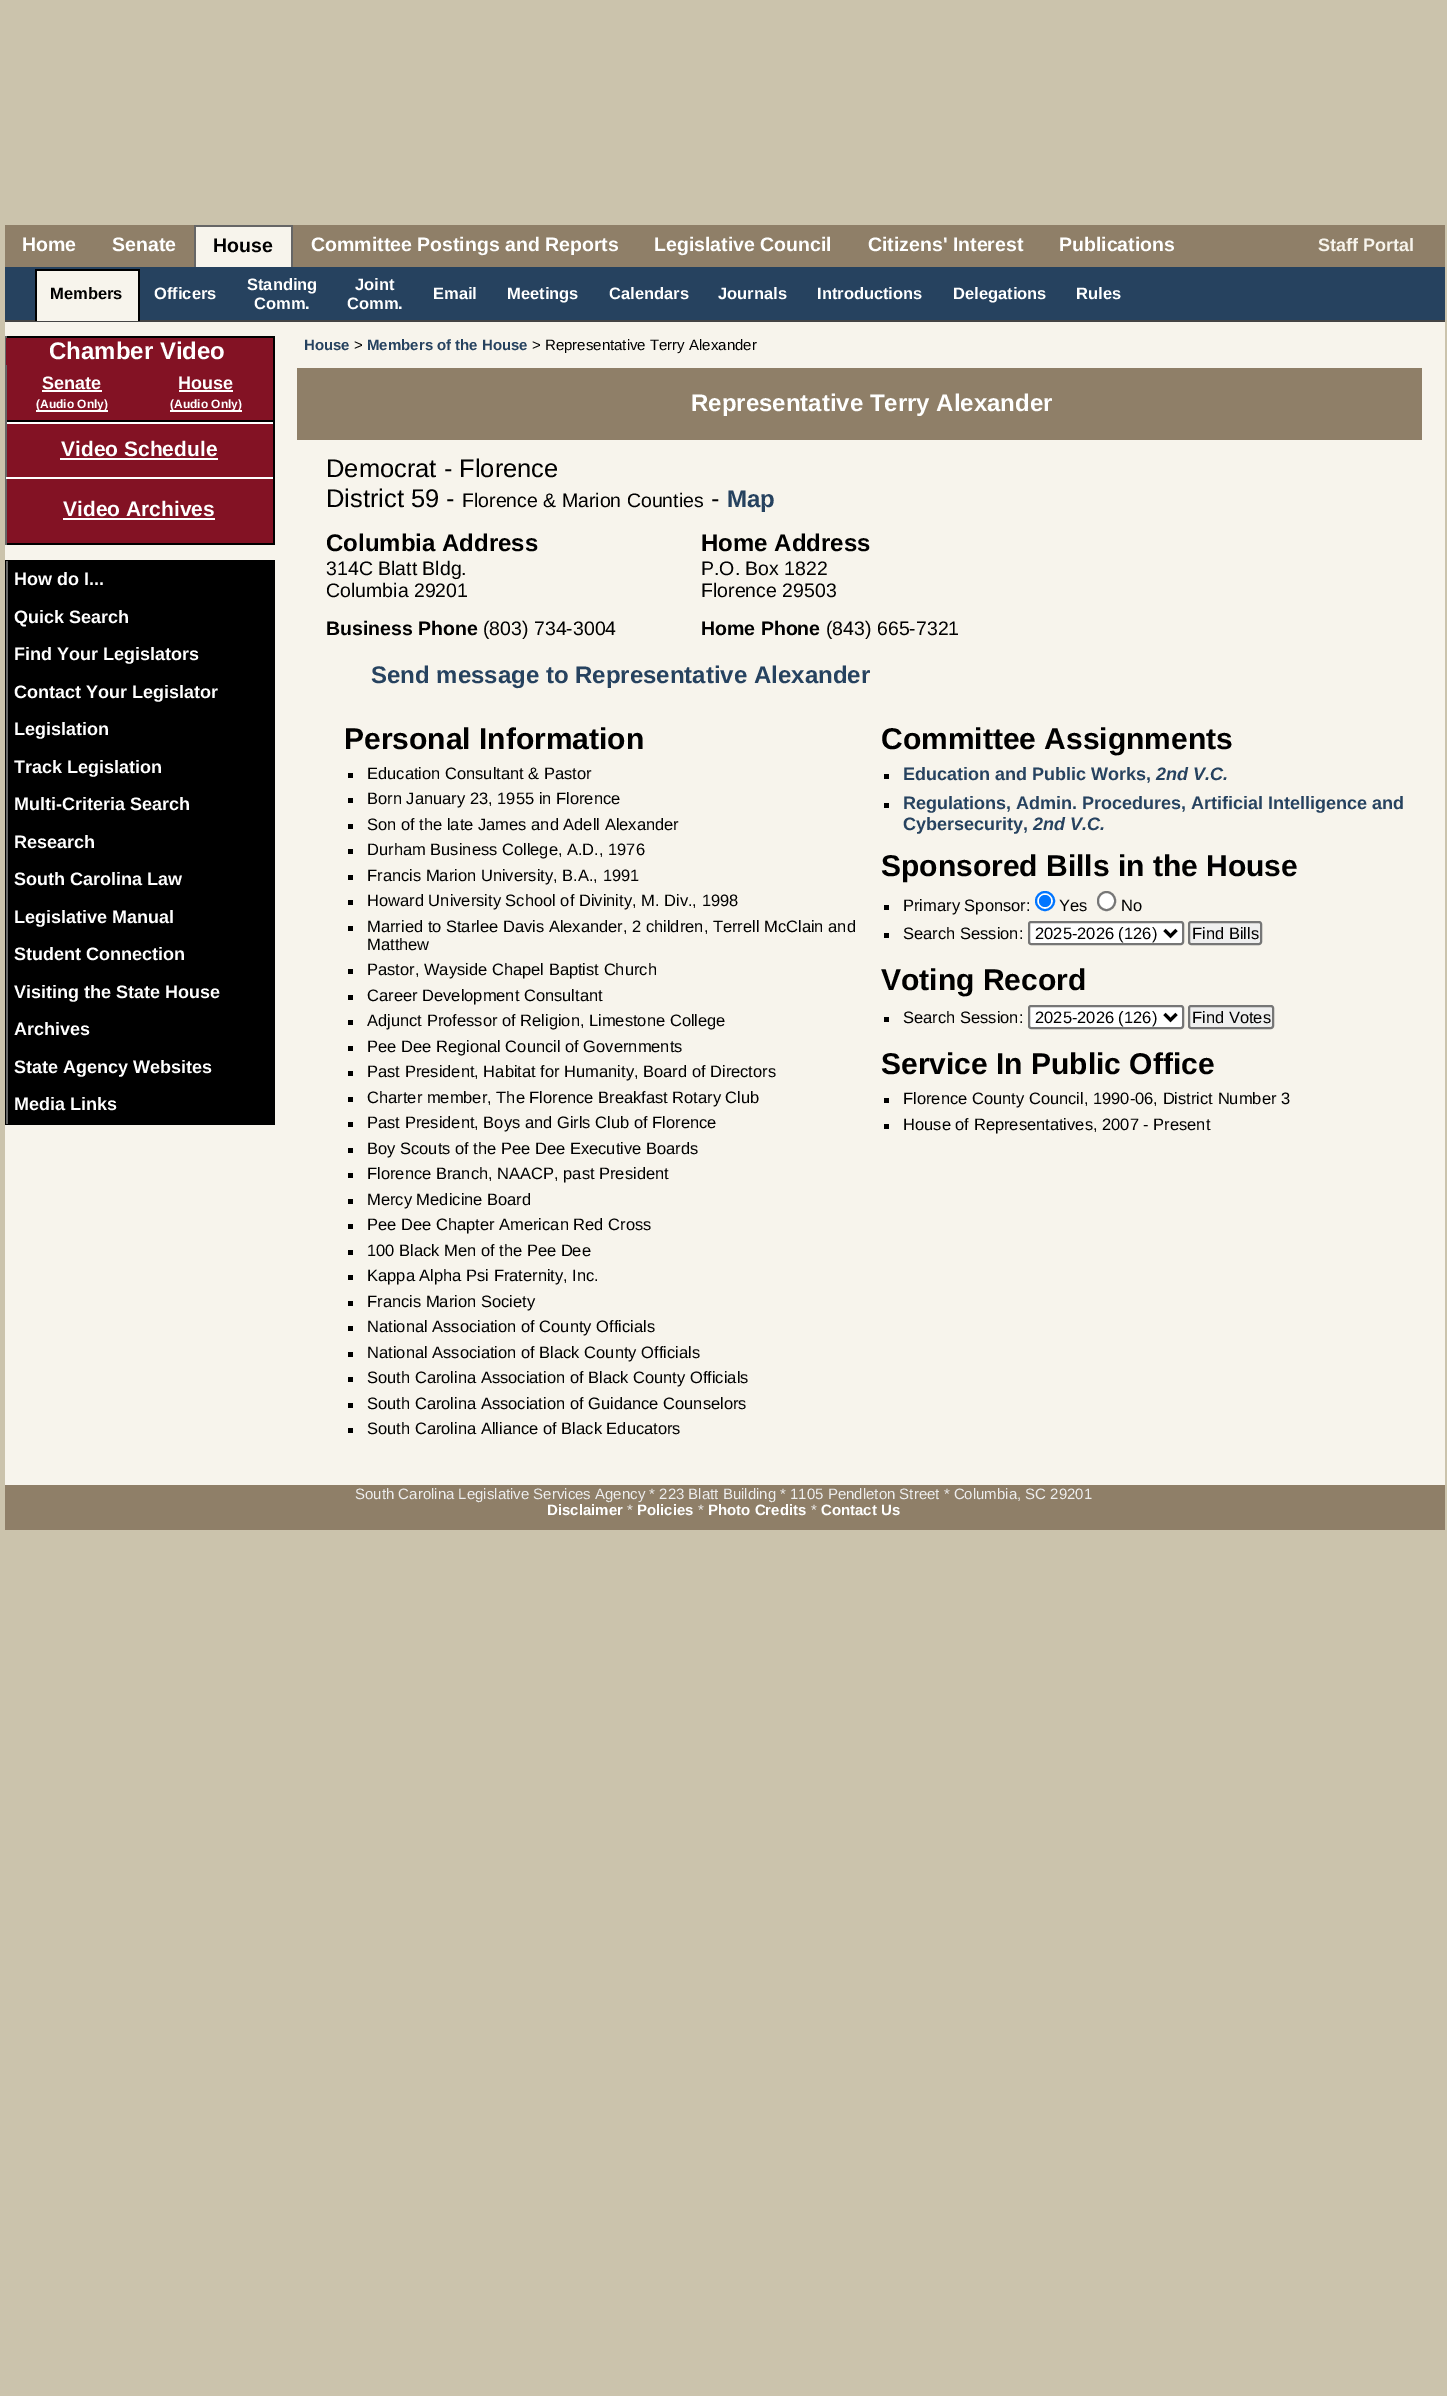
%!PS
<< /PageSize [1447 2396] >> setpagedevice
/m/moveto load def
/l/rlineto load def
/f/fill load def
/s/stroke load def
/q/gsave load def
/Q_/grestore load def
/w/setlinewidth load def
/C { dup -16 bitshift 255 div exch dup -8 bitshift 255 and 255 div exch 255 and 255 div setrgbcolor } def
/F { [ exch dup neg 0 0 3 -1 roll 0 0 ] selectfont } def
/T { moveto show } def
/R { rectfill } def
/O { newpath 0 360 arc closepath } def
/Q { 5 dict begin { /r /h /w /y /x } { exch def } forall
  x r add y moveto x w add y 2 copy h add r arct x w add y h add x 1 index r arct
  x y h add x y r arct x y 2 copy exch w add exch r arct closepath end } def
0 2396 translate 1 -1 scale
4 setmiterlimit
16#CBC3AC C
0 0 1447 2396 R
16#F7F4EC C
5 322 1440 1163 R
16#8F7F68 C
5 225 1440 42 R
/LiberationSans-Bold 19.5 F
16#FFFFFF C
(Home) 22 251 T
(Senate) 112 251 T
16#F7F4EC C
196 227 95 40 R
16#666666 C
194 225 99 2 R
291 225 2 42 R
194 225 2 42 R
16#000000 C
(House) 213 252 T
16#FFFFFF C
(Committee Postings and Reports) 311 251 T
(Legislative Council) 654 251 T
(Citizens' Interest) 868 251 T
(Publications) 1059 251 T
/LiberationSans-Bold 18 F
16#F7F4EC C
(Staff Portal) 1318 251 T
16#26425F C
5 267 1440 53 R
16#444444 C
5 320 1440 2 R
16#F7F4EC C
37 271 101 50 R
16#000000 C
35 269 105 2 R
138 269 2 52 R
35 269 2 52 R
/LiberationSans-Bold 16.5 F
(Members) 50 299 T
16#FFFFFF C
(Officers) 154 299 T
(Standing) 247 290 T
(Comm.) 254 309 T
(Joint) 355 290 T
(Comm.) 347 309 T
(Email) 433 299 T
(Meetings) 507 299 T
(Calendars) 609 299 T
(Journals) 718 299 T
(Introductions) 817 299 T
(Delegations) 953 299 T
(Rules) 1076 299 T
16#831224 C
7 365 266 55 R
16#000000 C
5 336 270 2 R
273 336 2 86 R
5 420 270 2 R
16#666666 C
5 336 2 86 R
16#831224 C
6 338 267 27 R
/LiberationSans-Bold 24 F
16#FFFFFF C
(Chamber Video) 49 359 T
/LiberationSans-Bold 18 F
(Senate) 42 389 T
42 390 60 2 R
36 410 72 2 R
/LiberationSans-Bold 12 F
(\(Audio Only\)) 36 408 T
/LiberationSans-Bold 18 F
(House) 178 389 T
179 390 54 2 R
170 410 72 2 R
/LiberationSans-Bold 12 F
(\(Audio Only\)) 170 408 T
16#831224 C
7 424 266 119 R
16#FFFFFF C
5 422 270 2 R
16#000000 C
273 422 2 123 R
5 543 270 2 R
16#666666 C
5 422 2 123 R
/LiberationSans-Bold 21 F
16#FFFFFF C
(Video Schedule) 61 456 T
60 458 158 2 R
6 477 267 2 R
(Video Archives) 63 516 T
63 518 152 2 R
16#000000 C
5 560 270 565 R
16#666666 C
6 561 2 563 R
/LiberationSans-Bold 18 F
16#FFFFFF C
(How do I...) 14 585 T
(Quick Search) 14 623 T
(Find Your Legislators) 14 660 T
(Contact Your Legislator) 14 698 T
(Legislation) 14 735 T
(Track Legislation) 14 773 T
(Multi-Criteria Search) 14 810 T
(Research) 14 848 T
(South Carolina Law) 14 885 T
(Legislative Manual) 14 923 T
(Student Connection) 14 960 T
(Visiting the State House) 14 998 T
(Archives) 14 1035 T
(State Agency Websites) 14 1073 T
(Media Links) 14 1110 T
/LiberationSans-Bold 15 F
16#26425F C
(House) 304 350 T
/LiberationSans-Regular 15 F
16#000000 C
(>) 354 350 T
/LiberationSans-Bold 15 F
16#26425F C
(Members of the House) 367 350 T
/LiberationSans-Regular 15 F
16#000000 C
(> Representative Terry Alexander) 532 350 T
16#8F7F68 C
297 368 1125 72 R
/LiberationSans-Bold 24 F
16#FFFFFF C
(Representative Terry Alexander) 691 411 T
/LiberationSans-Regular 25.5 F
16#000000 C
(Democrat - Florence) 326 477 T
(District 59 -) 326 507 T
/LiberationSans-Regular 19.5 F
(Florence & Marion Counties) 462 507 T
/LiberationSans-Regular 25.5 F
(-) 711 507 T
/LiberationSans-Bold 24 F
16#26425F C
(Map) 727 507 T
16#000000 C
(Columbia Address) 326 551 T
/LiberationSans-Regular 19.5 F
(314C Blatt Bldg.) 326 575 T
(Columbia 29201) 326 597 T
/LiberationSans-Bold 19.5 F
(Business Phone) 326 635 T
/LiberationSans-Regular 19.5 F
(\(803\) 734-3004) 483 635 T
/LiberationSans-Bold 24 F
(Home Address) 701 551 T
/LiberationSans-Regular 19.5 F
(P.O. Box 1822) 701 575 T
(Florence 29503) 701 597 T
/LiberationSans-Bold 19.5 F
(Home Phone) 701 635 T
/LiberationSans-Regular 19.5 F
(\(843\) 665-7321) 826 635 T
/LiberationSans-Bold 24 F
16#26425F C
(Send message to Representative Alexander) 371 683 T
/LiberationSans-Bold 30 F
16#000000 C
(Personal Information) 344 749 T
348 773 5 5 R
/LiberationSans-Regular 16.5 F
(Education Consultant & Pastor) 367 779 T
348 798 5 5 R
(Born January 23, 1955 in Florence) 367 804 T
348 824 5 5 R
(Son of the late James and Adell Alexander) 367 830 T
348 849 5 5 R
(Durham Business College, A.D., 1976) 367 855 T
348 875 5 5 R
(Francis Marion University, B.A., 1991) 367 881 T
348 900 5 5 R
(Howard University School of Divinity, M. Div., 1998) 367 906 T
348 926 5 5 R
(Married to Starlee Davis Alexander, 2 children, Terrell McClain and) 367 932 T
(Matthew) 367 950 T
348 969 5 5 R
(Pastor, Wayside Chapel Baptist Church) 367 975 T
348 995 5 5 R
(Career Development Consultant) 367 1001 T
348 1020 5 5 R
(Adjunct Professor of Religion, Limestone College) 367 1026 T
348 1046 5 5 R
(Pee Dee Regional Council of Governments) 367 1052 T
348 1071 5 5 R
(Past President, Habitat for Humanity, Board of Directors) 367 1077 T
348 1097 5 5 R
(Charter member, The Florence Breakfast Rotary Club) 367 1103 T
348 1122 5 5 R
(Past President, Boys and Girls Club of Florence) 367 1128 T
348 1148 5 5 R
(Boy Scouts of the Pee Dee Executive Boards) 367 1154 T
348 1173 5 5 R
(Florence Branch, NAACP, past President) 367 1179 T
348 1199 5 5 R
(Mercy Medicine Board) 367 1205 T
348 1224 5 5 R
(Pee Dee Chapter American Red Cross) 367 1230 T
348 1250 5 5 R
(100 Black Men of the Pee Dee) 367 1256 T
348 1275 5 5 R
(Kappa Alpha Psi Fraternity, Inc.) 367 1281 T
348 1301 5 5 R
(Francis Marion Society) 367 1307 T
348 1326 5 5 R
(National Association of County Officials) 367 1332 T
348 1352 5 5 R
(National Association of Black County Officials) 367 1358 T
348 1377 5 5 R
(South Carolina Association of Black County Officials) 367 1383 T
348 1403 5 5 R
(South Carolina Association of Guidance Counselors) 367 1409 T
348 1428 5 5 R
(South Carolina Alliance of Black Educators) 367 1434 T
/LiberationSans-Bold 30 F
(Committee Assignments) 881 749 T
884 774 5 5 R
/LiberationSans-Bold 18 F
16#26425F C
(Education and Public Works,) 903 780 T
/LiberationSans-BoldItalic 18 F
(2nd V.C.) 1156 780 T
16#000000 C
884 803 5 5 R
/LiberationSans-Bold 18 F
16#26425F C
(Regulations, Admin. Procedures, Artificial Intelligence and) 903 809 T
(Cybersecurity,) 903 830 T
/LiberationSans-BoldItalic 18 F
(2nd V.C.) 1033 830 T
/LiberationSans-Bold 30 F
16#000000 C
(Sponsored Bills in the House) 881 876 T
884 905 5 5 R
/LiberationSans-Regular 16.5 F
(Primary Sponsor:) 903 911 T
16#FFFFFF C
1045 901 9 O q f Q_
16#0075FF C
2 w
s
1045 901 6 O f
16#000000 C
(Yes) 1059 911 T
16#FFFFFF C
1098 892 17 18 8.5 Q q f Q_
16#767676 C
s
16#000000 C
(No) 1121 911 T
884 933 5 5 R
(Search Session:) 903 939 T
16#FFFFFF C
1029 922 154 22 2 Q q f Q_
16#767676 C
s
16#000000 C
3 w
1164.5 930 m 6 6 l 6 -6 l s
(2025-2026 \(126\)) 1035 939 T
16#EFEFEF C
1189 922 72 22 2 Q q f Q_
16#767676 C
2 w
s
16#000000 C
(Find Bills) 1192 939 T
/LiberationSans-Bold 30 F
(Voting Record) 881 990 T
884 1017 5 5 R
/LiberationSans-Regular 16.5 F
(Search Session:) 903 1023 T
16#FFFFFF C
1029 1006 154 22 2 Q q f Q_
16#767676 C
s
16#000000 C
3 w
1164.5 1014 m 6 6 l 6 -6 l s
(2025-2026 \(126\)) 1035 1023 T
16#EFEFEF C
1189 1006 84 22 2 Q q f Q_
16#767676 C
2 w
s
16#000000 C
(Find Votes) 1192 1023 T
/LiberationSans-Bold 30 F
(Service In Public Office) 881 1074 T
884 1098 5 5 R
/LiberationSans-Regular 16.5 F
(Florence County Council, 1990-06, District Number 3) 903 1104 T
884 1124 5 5 R
(House of Representatives, 2007 - Present) 903 1130 T
16#8F7F68 C
5 1485 1440 45 R
/LiberationSans-Regular 15 F
16#EEEEEE C
(South Carolina Legislative Services Agency * 223 Blatt Building * 1105 Pendleton Street * Columbia, SC 29201) 355 1499 T
/LiberationSans-Bold 15 F
16#FFFFFF C
(Disclaimer) 547 1515 T
/LiberationSans-Regular 15 F
16#EEEEEE C
(*) 627 1515 T
/LiberationSans-Bold 15 F
16#FFFFFF C
(Policies) 637 1515 T
/LiberationSans-Regular 15 F
16#EEEEEE C
(*) 698 1515 T
/LiberationSans-Bold 15 F
16#FFFFFF C
(Photo Credits) 708 1515 T
/LiberationSans-Regular 15 F
16#EEEEEE C
(*) 811 1515 T
/LiberationSans-Bold 15 F
16#FFFFFF C
(Contact Us) 821 1515 T
showpage
